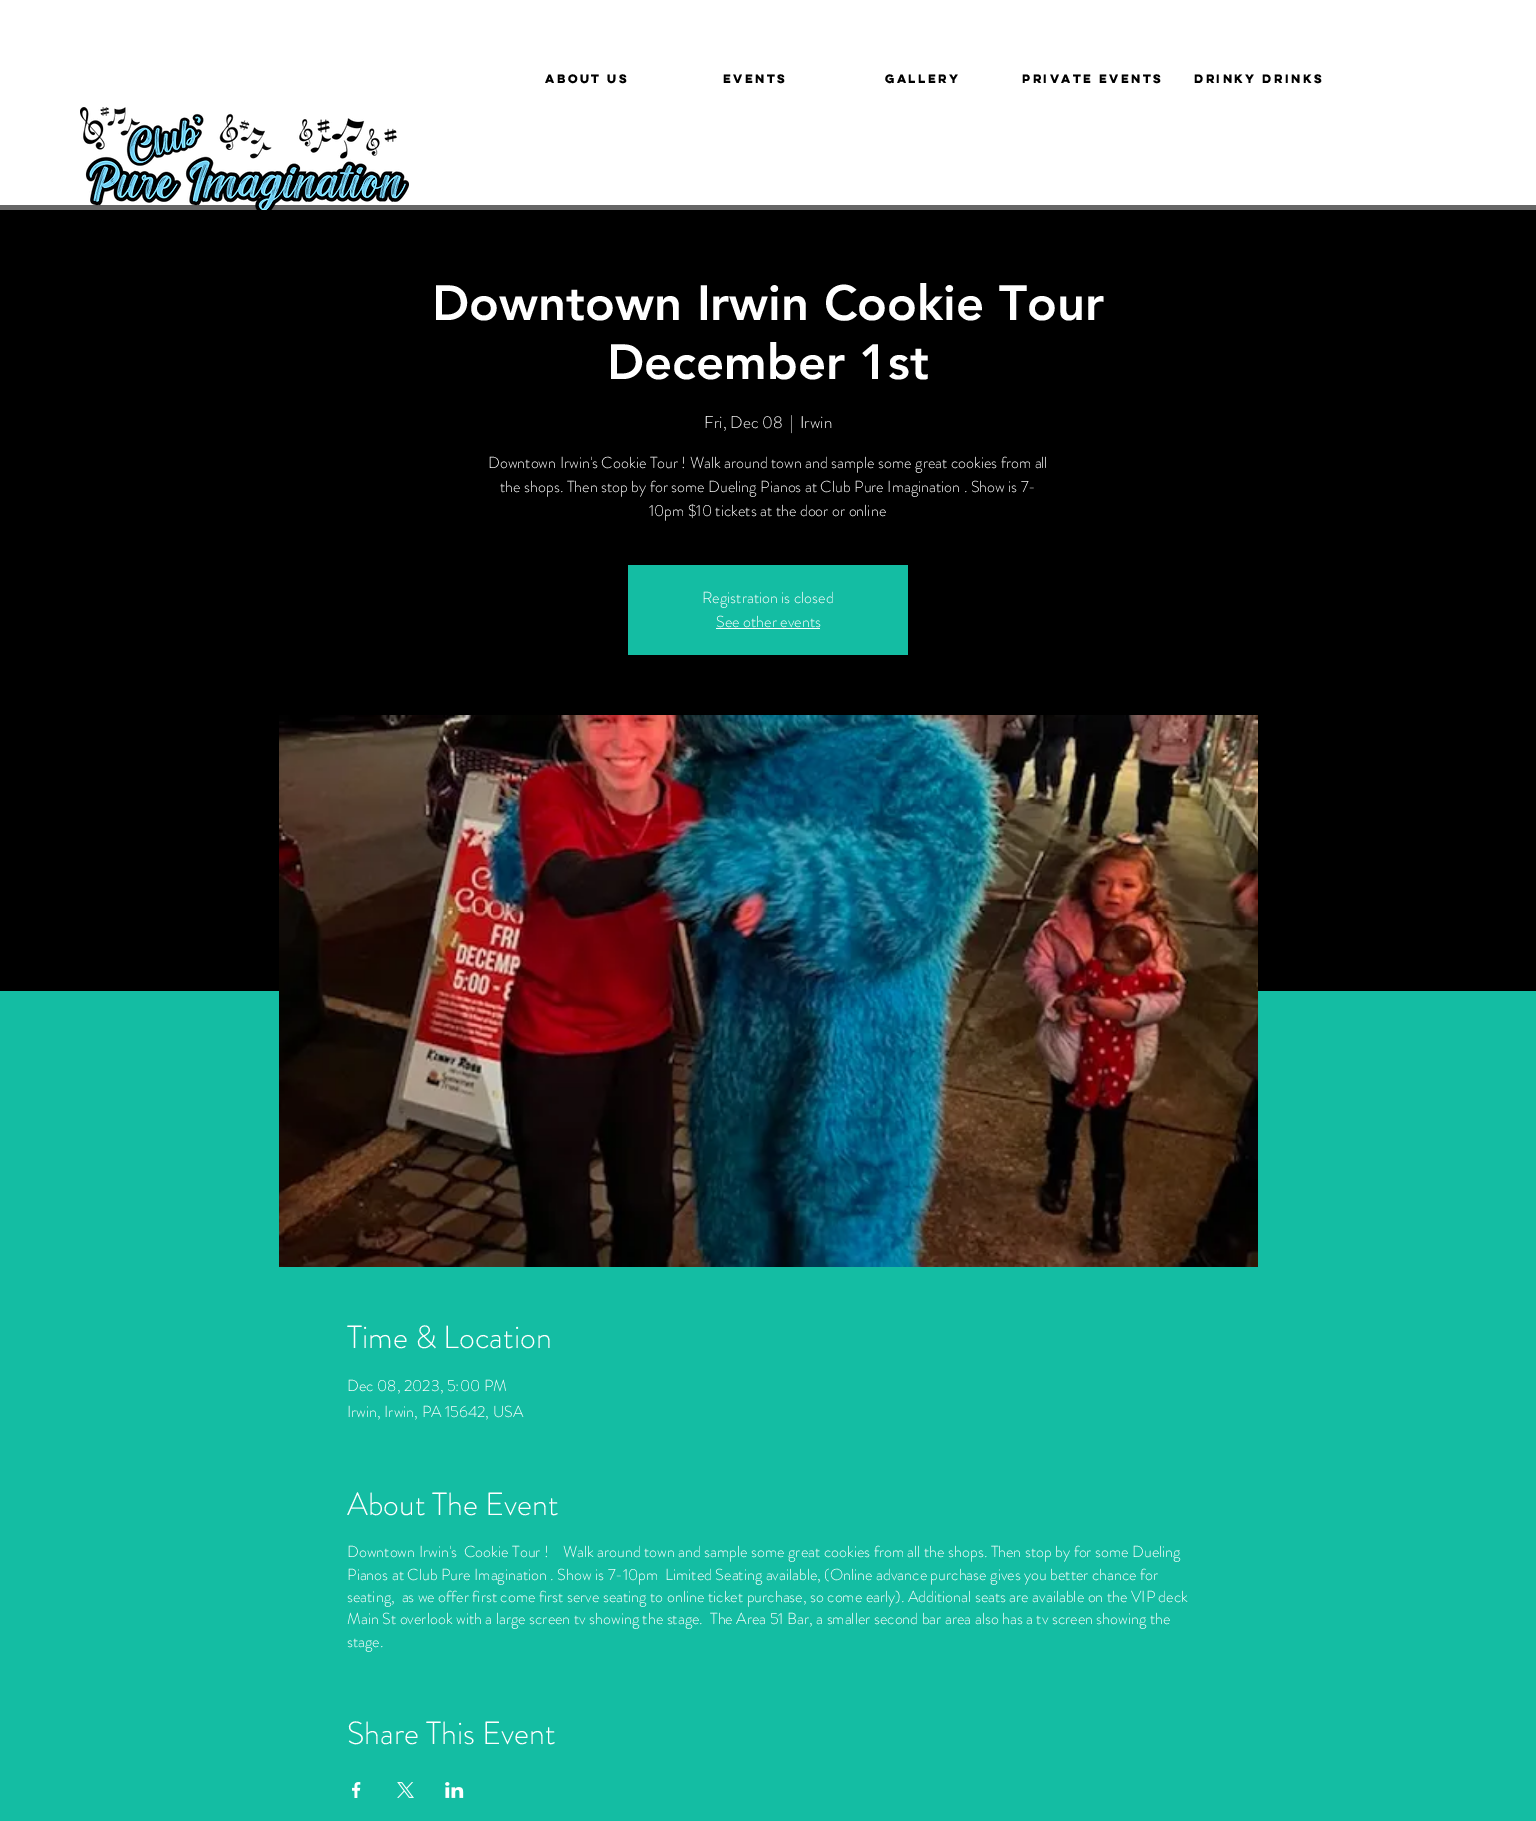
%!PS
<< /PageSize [1536 1821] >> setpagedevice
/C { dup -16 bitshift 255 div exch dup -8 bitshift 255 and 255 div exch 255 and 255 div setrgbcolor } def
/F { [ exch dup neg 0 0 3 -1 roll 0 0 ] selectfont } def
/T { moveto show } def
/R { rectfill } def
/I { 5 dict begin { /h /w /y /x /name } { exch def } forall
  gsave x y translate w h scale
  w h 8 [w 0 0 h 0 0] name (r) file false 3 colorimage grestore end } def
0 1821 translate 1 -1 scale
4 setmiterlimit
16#FFFFFF C
0 0 1536 1821 R
/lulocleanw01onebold-Bold 11 F
16#000000 C
(ABOUT US) 545 83 T
(EVENTS) 723 83 T
(GALLERY) 885 83 T
(PRIVATE EVENTS) 1022 83 T
(DRINKY DRINKS) 1194 83 T
16#666666 C
0 205 1536 5 R
(1.rgb) 80 107 329 103 I
16#000000 C
0 210 1536 781 R
/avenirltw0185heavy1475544-Black 49 F
16#FFFFFF C
(Downtown Irwin Cookie Tour) 432 320 T
(December 1st) 607 379 T
/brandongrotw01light-Light 17 F
(Fri, Dec 08) 704 428 T
(|) 790 428 T
(Irwin) 800 428 T
/brandongrotw01light-Light 16 F
(Downtown Irwin's Cookie Tour ! Walk around town and sample some great cookies from all) 488 468 T
(the shops. Then stop by for some Dueling Pianos at Club Pure Imagination . Show is 7-) 500 492 T
(10pm $10 tickets at the door or online) 649 516 T
16#14BDA3 C
628 565 280 90 R
16#FFFFFF C
(Registration is closed) 702 603 T
(See other events) 716 627 T
716 628 104 1 R
16#14BDA3 C
0 991 1536 830 R
(2.rgb) 279 715 979 552 I
/brandongrotw01light-Light 32 F
16#FFFFFF C
(Time & Location) 347 1348 T
/brandongrotw01light-Light 16 F
(Dec 08, 2023, 5:00 PM) 347 1391 T
(Irwin, Irwin, PA 15642, USA) 347 1417 T
/brandongrotw01light-Light 32 F
(About The Event) 347 1515 T
/brandongrotw01light-Light 16 F
(Downtown Irwin's  Cookie Tour !    Walk around town and sample some great cookies from all the shops. Then stop by for some Dueling) 347 1557 T
(Pianos at Club Pure Imagination . Show is 7-10pm  Limited Seating available, \(Online advance purchase gives you better chance for) 347 1580 T
(seating,  as we offer first come first serve seating to online ticket purchase, so come early\). Additional seats are available on the VIP deck) 347 1602 T
(Main St overlook with a large screen tv showing the stage.  The Area 51 Bar, a smaller second bar area also has a tv screen showing the) 347 1624 T
(stage.) 347 1647 T
/brandongrotw01light-Light 32 F
(Share This Event) 347 1744 T
(3.rgb) 352 1782 9 16 I
(4.rgb) 397 1782 17 16 I
(5.rgb) 445 1782 19 16 I
showpage
